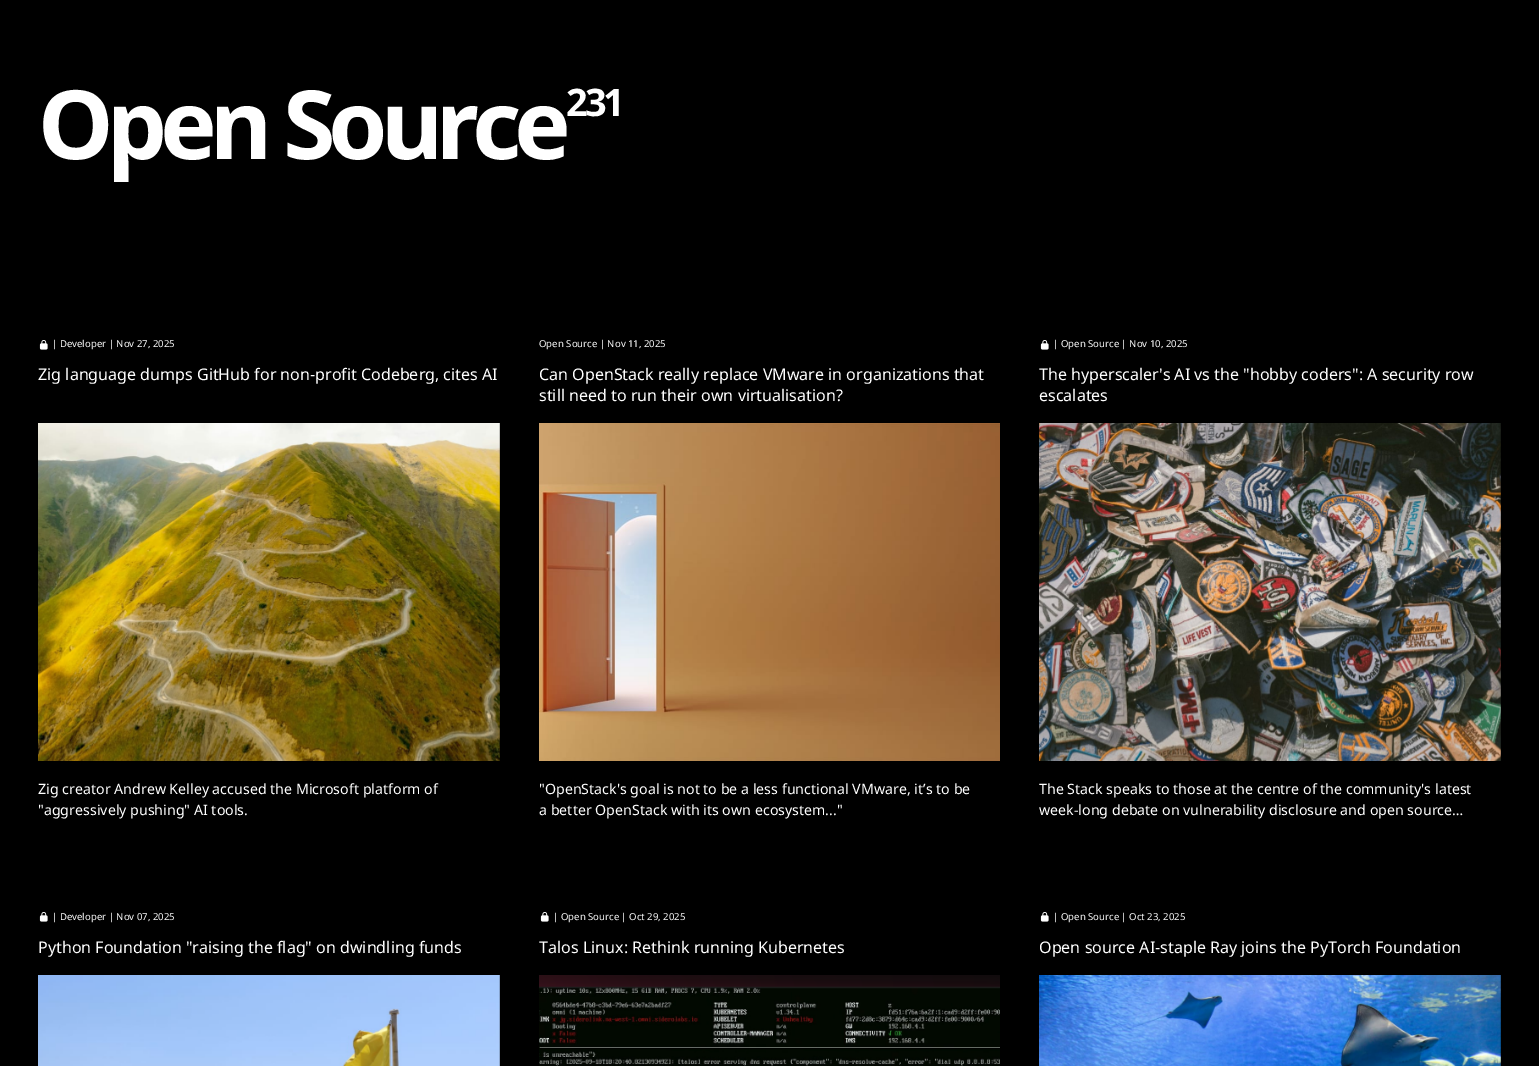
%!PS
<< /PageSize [1539 1066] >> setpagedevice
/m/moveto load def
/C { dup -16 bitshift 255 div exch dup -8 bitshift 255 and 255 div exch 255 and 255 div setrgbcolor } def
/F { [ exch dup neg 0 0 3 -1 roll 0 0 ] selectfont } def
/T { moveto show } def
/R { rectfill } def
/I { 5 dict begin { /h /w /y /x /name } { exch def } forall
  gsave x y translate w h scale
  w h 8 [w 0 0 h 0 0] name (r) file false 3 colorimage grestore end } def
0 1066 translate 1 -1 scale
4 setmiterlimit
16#000000 C
0 0 1539 1066 R
/NotoSans-Bold 95.5 F
16#FFFFFF C
38 159 m -7 0 (Open Source) ashow
/NotoSans-Bold 38 F
566 116 m -3 0 (231) ashow
(1.rgb) 39 340 9 10 I
/NotoSans-Regular 9.6 F
(| Developer | Nov 27, 2025) 52 347 T
/NotoSans-Regular 16.05 F
(Zig language dumps GitHub for non-profit Codeberg, cites AI) 38 380 T
(2.rgb) 38 423 462 338 I
/NotoSans-Regular 14.2 F
(Zig creator Andrew Kelley accused the Microsoft platform of) 38 794 T
("aggressively pushing" AI tools.) 38 815 T
/NotoSans-Regular 9.6 F
(Open Source | Nov 11, 2025) 539 347 T
/NotoSans-Regular 16.05 F
(Can OpenStack really replace VMware in organizations that) 539 380 T
(still need to run their own virtualisation?) 539 401 T
(3.rgb) 539 423 461 338 I
/NotoSans-Regular 14.2 F
("OpenStack's goal is not to be a less functional VMware, it’s to be) 539 794 T
(a better OpenStack with its own ecosystem...") 539 815 T
(1.rgb) 1040 340 9 10 I
/NotoSans-Regular 9.6 F
(| Open Source | Nov 10, 2025) 1053 347 T
/NotoSans-Regular 16.05 F
(The hyperscaler's AI vs the "hobby coders": A security row) 1039 380 T
(escalates) 1039 401 T
(4.rgb) 1039 423 462 338 I
/NotoSans-Regular 14.2 F
(The Stack speaks to those at the centre of the community's latest) 1039 794 T
(week-long debate on vulnerability disclosure and open source…) 1039 815 T
(1.rgb) 39 912 9 10 I
/NotoSans-Regular 9.6 F
(| Developer | Nov 07, 2025) 52 920 T
/NotoSans-Regular 16.05 F
(Python Foundation "raising the flag" on dwindling funds) 38 953 T
(5.rgb) 38 975 462 91 I
(1.rgb) 540 912 9 10 I
/NotoSans-Regular 9.6 F
(| Open Source | Oct 29, 2025) 553 920 T
/NotoSans-Regular 16.05 F
(Talos Linux: Rethink running Kubernetes) 539 953 T
(6.rgb) 539 975 461 91 I
(1.rgb) 1040 912 9 10 I
/NotoSans-Regular 9.6 F
(| Open Source | Oct 23, 2025) 1053 920 T
/NotoSans-Regular 16.05 F
(Open source AI-staple Ray joins the PyTorch Foundation) 1039 953 T
(7.rgb) 1039 975 462 91 I
showpage
